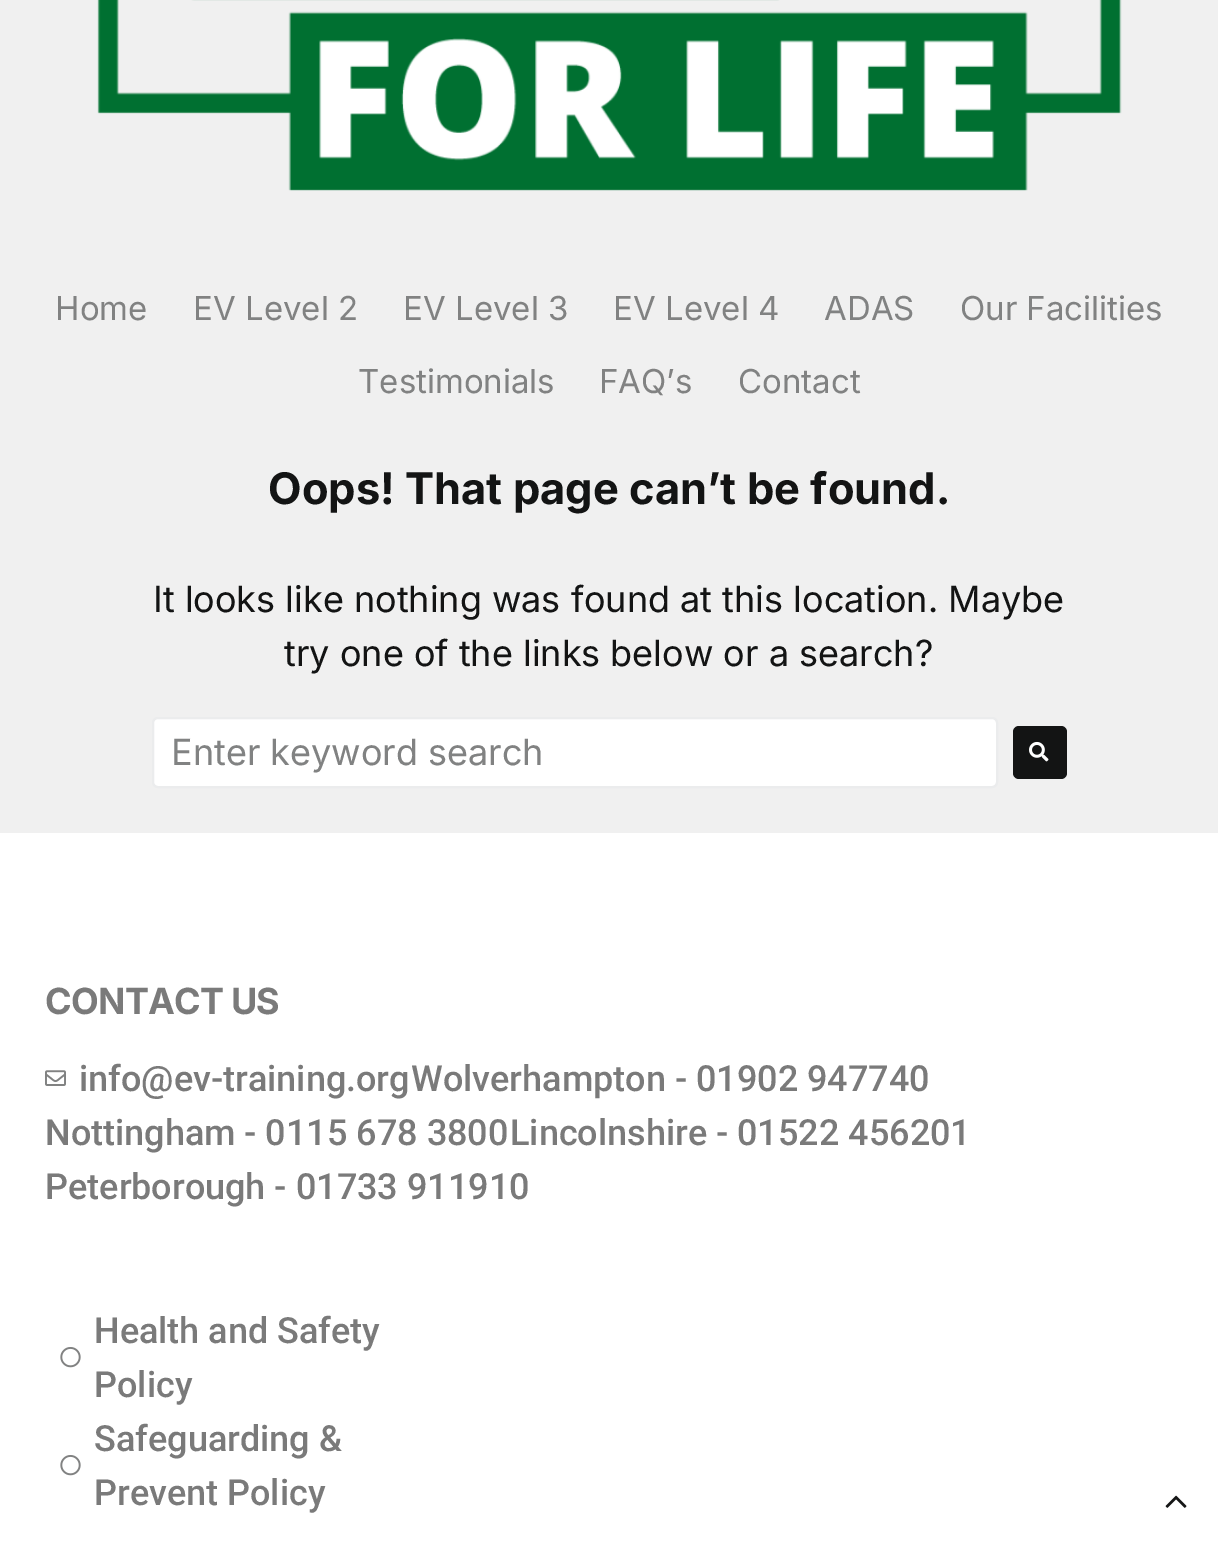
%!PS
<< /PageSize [1218 1550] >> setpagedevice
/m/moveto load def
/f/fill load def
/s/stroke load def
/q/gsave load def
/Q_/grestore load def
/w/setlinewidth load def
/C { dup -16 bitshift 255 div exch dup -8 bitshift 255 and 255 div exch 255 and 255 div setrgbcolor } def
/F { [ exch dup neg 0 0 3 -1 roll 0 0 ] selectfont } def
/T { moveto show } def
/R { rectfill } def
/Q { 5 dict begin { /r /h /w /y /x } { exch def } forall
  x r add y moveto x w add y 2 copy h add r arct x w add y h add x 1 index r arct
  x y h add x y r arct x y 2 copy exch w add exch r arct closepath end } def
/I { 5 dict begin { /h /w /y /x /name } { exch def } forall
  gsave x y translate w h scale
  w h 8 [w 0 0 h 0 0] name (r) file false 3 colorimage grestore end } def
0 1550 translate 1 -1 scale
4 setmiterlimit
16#F0F0F0 C
0 0 1218 1550 R
(1.rgb) 97 0 1025 191 I
/Inter-Regular 33 F
16#818282 C
(Home) 55 320 T
(EV Level 2) 193 320 T
(EV Level 3) 403 320 T
(EV Level 4) 613 320 T
(ADAS) 824 320 T
(Our Facilities) 960 320 T
(Testimonials) 358 393 T
(FAQ’s) 599 393 T
(Contact) 738 393 T
/Inter-Bold 43.5 F
16#131414 C
(Oops! That page can’t be found.) 268 504 T
/Inter-Regular 36 F
(It looks like nothing was found at this location. Maybe) 153 612 T
(try one of the links below or a search?) 284 666 T
16#FFFFFF C
153 718 844 69 5 Q q f Q_
16#EBECED C
2 w
s
16#818282 C
(Enter keyword search) 171 765 T
16#131414 C
1013 726 54 53 6 Q f
(2.rgb) 1029 741 20 21 I
16#FFFFFF C
0 833 1218 717 R
/Inter-Bold 36 F
16#7A7A7A C
45 1014 m -.75 0 (CONTACT US) ashow
(3.rgb) 45 1070 21 16 I
/Roboto-Medium 36 F
(info@ev-training.org) 79 1091 T
(Wolverhampton - 01902 947740) 411 1091 T
(Nottingham - 0115 678 3800) 45 1145 T
(Lincolnshire - 01522 456201) 510 1145 T
(Peterborough - 01733 911910) 45 1199 T
(4.rgb) 60 1347 21 21 I
(Health and Safety) 94 1343 T
(Policy) 94 1397 T
(4.rgb) 60 1455 21 21 I
(Safeguarding &) 94 1451 T
(Prevent Policy) 94 1505 T
(5.rgb) 1165 1495 22 13 I
showpage
